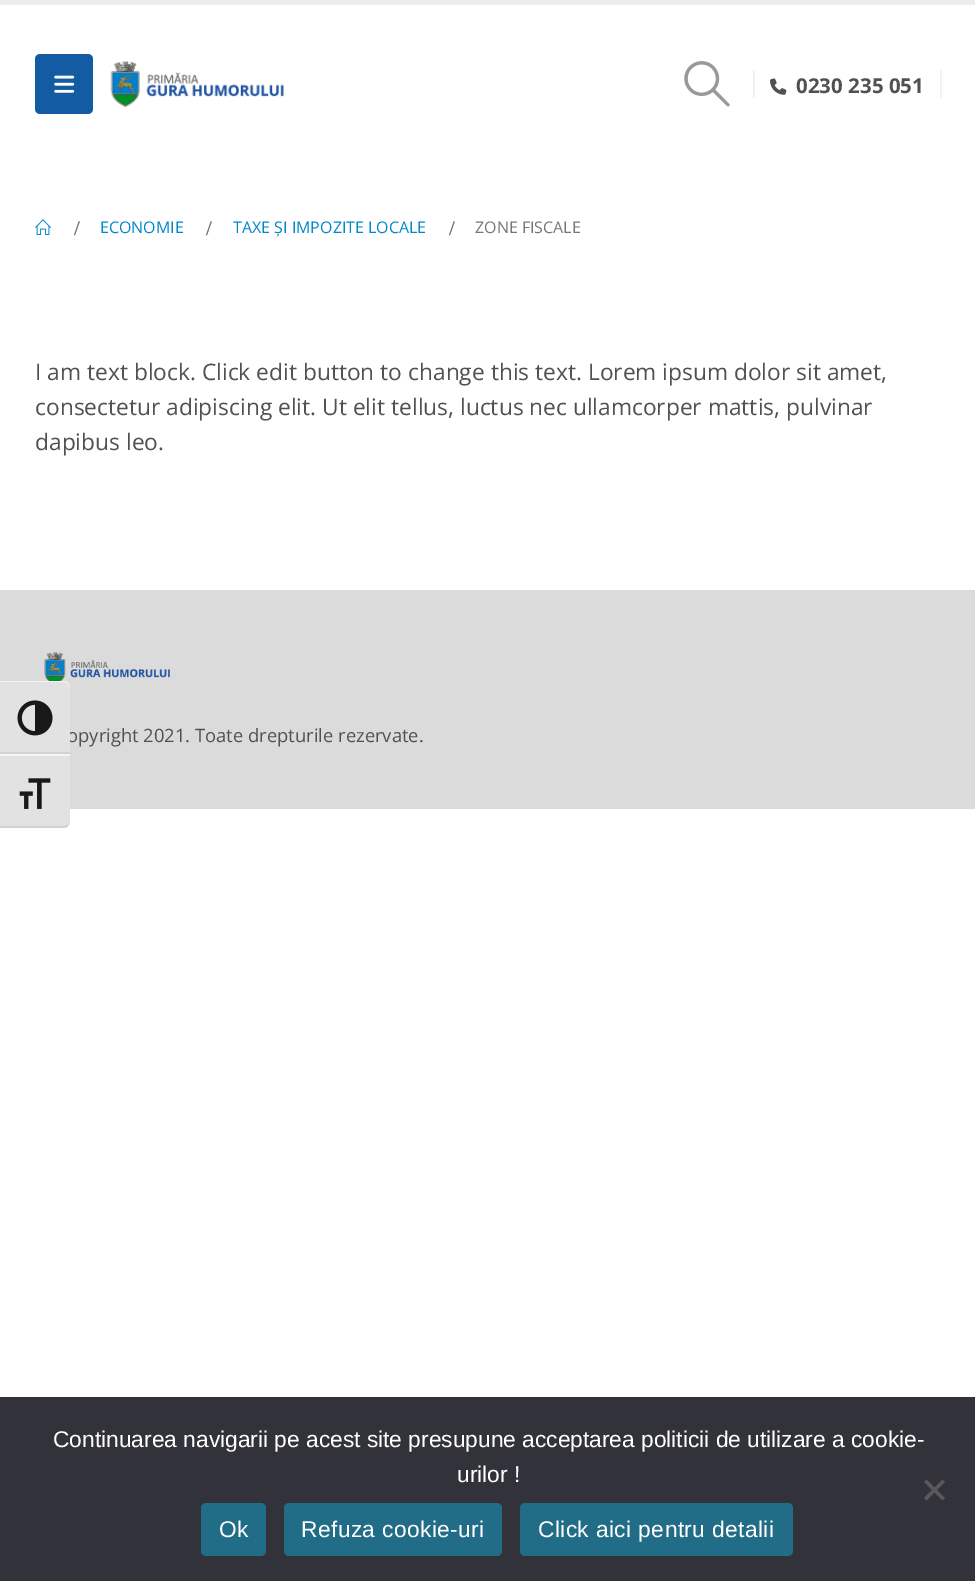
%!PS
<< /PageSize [975 1581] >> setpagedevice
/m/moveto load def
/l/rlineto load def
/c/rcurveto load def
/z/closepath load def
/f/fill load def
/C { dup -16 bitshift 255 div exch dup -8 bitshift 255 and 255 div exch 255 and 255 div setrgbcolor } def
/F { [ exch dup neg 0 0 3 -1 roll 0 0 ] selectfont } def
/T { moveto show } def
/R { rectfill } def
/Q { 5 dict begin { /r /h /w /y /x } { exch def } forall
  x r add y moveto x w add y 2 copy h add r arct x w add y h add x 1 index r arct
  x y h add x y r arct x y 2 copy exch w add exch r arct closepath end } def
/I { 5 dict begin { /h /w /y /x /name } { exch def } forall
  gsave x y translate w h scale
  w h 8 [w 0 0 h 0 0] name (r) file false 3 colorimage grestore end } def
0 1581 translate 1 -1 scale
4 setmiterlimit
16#FFFFFF C
0 0 975 1581 R
16#DBDBDB C
0 590 975 219 R
/OpenSans-Regular 18.4 F
16#515151 C
(opyright 2021. Toate drepturile rezervate.) 67 742 T
16#E2E2E2 C
0 681 m 63 0 l 4 0 7 3 7 7 c 0 66 l -70 0 l z f
16#F5F5F5 C
0 682 m 63 0 l 4 0 7 3 7 6 c 0 -4 -3 -7 -7 -7 c -63 0 l z f
16#D2D2D2 C
0 752 70 2 R
(1.rgb) 17 700 36 36 I
16#E2E2E2 C
0 754 m 70 0 l 0 67 l 0 4 -3 7 -7 7 c -63 0 l z f
16#F5F5F5 C
0 754 70 2 R
16#D2D2D2 C
65 828 m 3 -1 5 -4 5 -7 c 0 3 -3 5 -7 5 c -63 0 l 0 2 l z f
(2.rgb) 19 778 32 31 I
16#EDEDED C
0 0 975 5 R
16#135BA3 C
35 54 58 60 5 Q f
(3.rgb) 54 75 21 18 I
(4.rgb) 110 61 174 47 I
(5.rgb) 684 61 46 46 I
16#F2F2F2 C
753 70 2 28 R
(6.rgb) 770 78 17 17 I
/OpenSans-Bold 20.5 F
16#515151 C
(0230 235 051) 796 93 T
16#F2F2F2 C
940 70 2 28 R
(7.rgb) 35 219 16 16 I
/LiberationSerif-Bold 21 F
16#777777 C
(/) 74 235 T
/OpenSans-Regular 16 F
16#0088CC C
(ECONOMIE) 100 233 T
/LiberationSerif-Bold 21 F
16#777777 C
(/) 206 235 T
/OpenSans-Regular 16 F
16#0088CC C
(TAXE ȘI IMPOZITE LOCALE) 233 233 T
/LiberationSerif-Bold 21 F
16#777777 C
(/) 449 235 T
/OpenSans-Regular 16 F
(ZONE FISCALE) 475 233 T
/OpenSans-Regular 22.75 F
16#515151 C
(I am text block. Click edit button to change this text. Lorem ipsum dolor sit amet,) 35 380 T
(consectetur adipiscing elit. Ut elit tellus, luctus nec ullamcorper mattis, pulvinar) 35 415 T
(dapibus leo.) 35 450 T
(8.rgb) 44 652 126 29 I
16#32323A C
0 1397 975 184 R
/LiberationSans-Regular 22.75 F
16#FFFFFF C
(Continuarea navigarii pe acest site presupune acceptarea politicii de utilizare a cookie-) 53 1447 T
(urilor !) 457 1482 T
16#59595D C
942.5 1479.5 m 2.5 2.5 l -18.5 18.5 l -2.5 -2.5 l z f
924 1482 m 2.5 -2.5 l 18.5 18.5 l -2.5 2.5 l z f
16#216C86 C
201 1503 65 53 5 Q f
16#FFFFFF C
219 1537 m .4 0 (Ok) ashow
16#216C86 C
284 1503 218 53 5 Q f
16#FFFFFF C
301 1537 m .4 0 (Refuza cookie-uri) ashow
16#216C86 C
520 1503 273 53 5 Q f
16#FFFFFF C
538 1537 m .4 0 (Click aici pentru detalii) ashow
showpage
